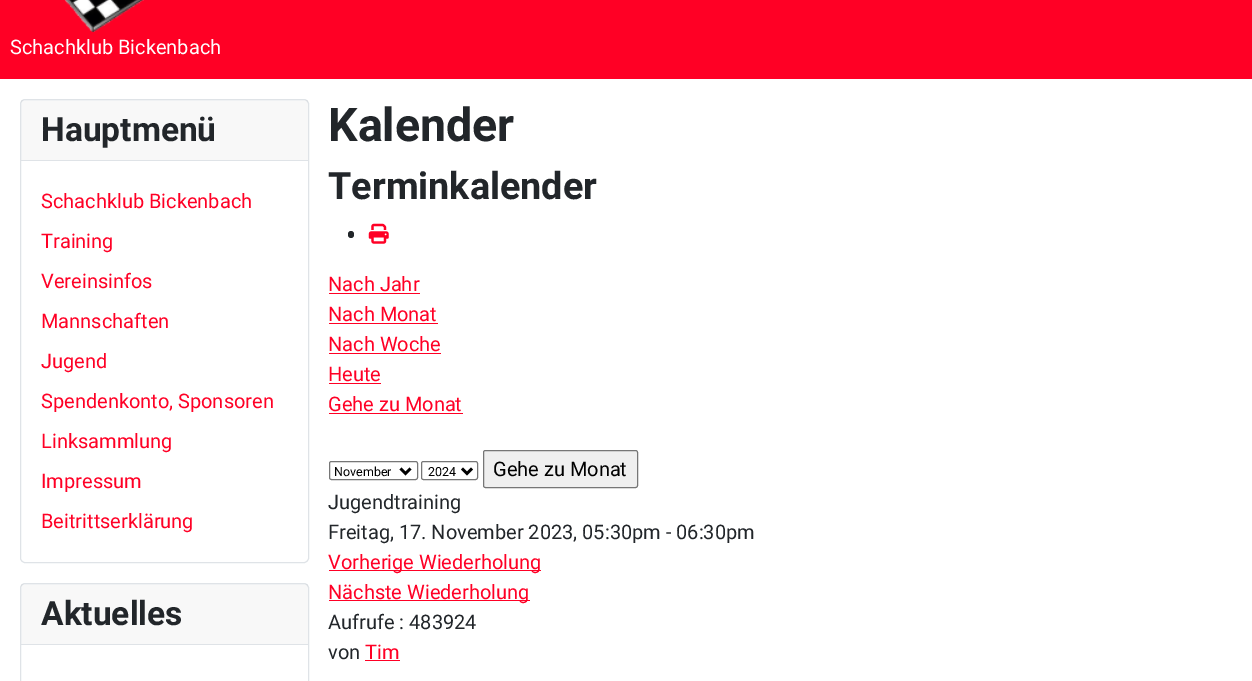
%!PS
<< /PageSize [1252 681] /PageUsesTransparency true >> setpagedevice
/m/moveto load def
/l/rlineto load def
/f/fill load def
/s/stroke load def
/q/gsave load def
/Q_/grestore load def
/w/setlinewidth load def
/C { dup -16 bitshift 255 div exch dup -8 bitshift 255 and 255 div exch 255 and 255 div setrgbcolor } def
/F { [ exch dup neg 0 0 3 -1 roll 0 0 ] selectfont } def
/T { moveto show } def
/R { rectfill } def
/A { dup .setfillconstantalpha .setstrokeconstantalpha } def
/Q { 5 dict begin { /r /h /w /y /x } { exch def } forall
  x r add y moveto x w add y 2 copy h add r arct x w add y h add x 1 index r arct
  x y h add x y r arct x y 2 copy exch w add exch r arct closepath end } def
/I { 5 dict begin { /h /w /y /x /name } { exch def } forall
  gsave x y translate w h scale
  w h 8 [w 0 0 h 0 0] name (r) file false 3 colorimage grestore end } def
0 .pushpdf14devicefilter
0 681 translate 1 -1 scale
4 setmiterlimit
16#FFFFFF C
0 0 1252 681 R
16#FF0025 C
0 0 1252 79 R
(1.rgb) 64 0 80 32 I
/Roboto-Regular 20 F
16#FFFFFF C
(Schachklub Bickenbach) 10 54 T
16#DFE3E7 C
20.5 99.5 288 463 4.5 Q s
0.03 A
16#22262A C
21 100 287 60 R
1 A
16#DFE3E7 C
21 160 287 1 R
/Roboto-Bold 33.5 F
16#22262A C
(Hauptmenü) 41 141 T
/Roboto-Regular 20 F
16#FF0025 C
(Schachklub Bickenbach) 41 208 T
(Training) 41 248 T
(Vereinsinfos) 41 288 T
(Mannschaften) 41 328 T
(Jugend) 41 368 T
(Spendenkonto, Sponsoren) 41 408 T
(Linksammlung) 41 448 T
(Impressum) 41 488 T
(Beitrittserklärung) 41 528 T
16#DFE3E7 C
20.5 583.5 288 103 4.5 Q s
0.03 A
16#22262A C
21 584 287 60 R
1 A
16#DFE3E7 C
21 644 287 1 R
/Roboto-Bold 33.5 F
16#22262A C
(Aktuelles) 41 625 T
/Roboto-Bold 46.5 F
(Kalender) 328 141 T
/Roboto-Bold 37.75 F
(Terminkalender) 328 199 T
348 231 6 7 3 Q f
(2.rgb) 368 223 21 21 I
/Roboto-Regular 20 F
16#FF0025 C
(Nach Jahr) 328 291 T
329 293 91 1 R
(Nach Monat) 328 321 T
329 323 109 1 R
(Nach Woche) 328 351 T
329 353 112 1 R
(Heute) 328 381 T
329 383 52 1 R
(Gehe zu Monat) 328 411 T
329 413 134 1 R
16#767676 C
329.5 461.5 88 18 2 Q s
16#000000 C
2.5 w
400.5 468.5 m 5 5 l 5 -5 l s
/Roboto-Regular 12.5 F
(November) 334 476 T
16#767676 C
1 w
421.5 461.5 56 18 2 Q s
16#000000 C
2.5 w
462 468.5 m 5 5 l 5 -5 l s
(2024) 428 476 T
16#EFEFEF C
483.5 450.5 154 37 2 Q q f Q_
16#767676 C
1 w
s
/Roboto-Regular 20 F
16#000000 C
(Gehe zu Monat) 493 476 T
16#22262A C
(Jugendtraining) 328 509 T
(Freitag, 17. November 2023, 05:30pm - 06:30pm) 328 539 T
16#FF0025 C
329 570 212 1 R
(Vorherige Wiederholung) 328 569 T
329 600 201 1 R
(Nächste Wiederholung) 328 599 T
16#22262A C
(Aufrufe : 483924) 328 629 T
(von) 328 659 T
16#FF0025 C
(Tim) 365 659 T
365 660 35 1 R
.poppdf14devicefilter showpage
